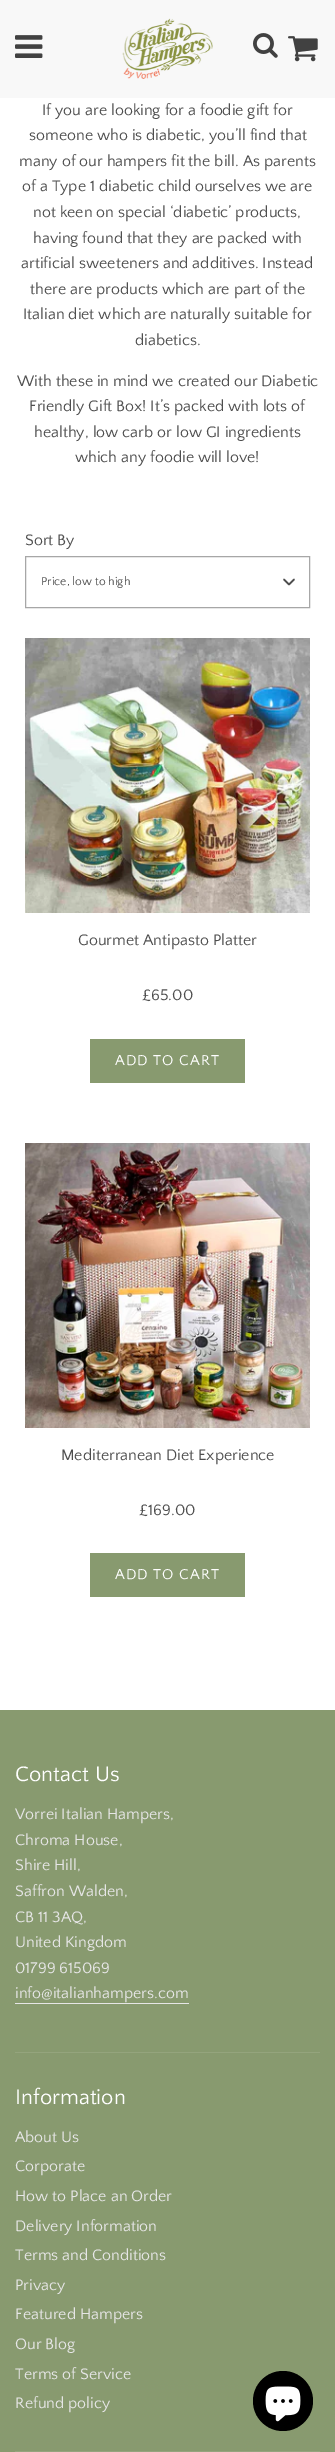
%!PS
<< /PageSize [335 2452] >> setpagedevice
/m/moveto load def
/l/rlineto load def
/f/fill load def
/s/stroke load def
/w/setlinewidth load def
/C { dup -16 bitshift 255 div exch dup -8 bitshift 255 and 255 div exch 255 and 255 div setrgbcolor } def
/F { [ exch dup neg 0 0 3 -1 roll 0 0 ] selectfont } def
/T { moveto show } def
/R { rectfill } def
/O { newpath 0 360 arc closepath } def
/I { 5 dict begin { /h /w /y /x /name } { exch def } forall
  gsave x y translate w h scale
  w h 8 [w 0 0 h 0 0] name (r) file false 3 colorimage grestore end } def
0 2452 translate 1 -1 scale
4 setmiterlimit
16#FFFFFF C
0 0 335 2452 R
16#F8F8F8 C
0 0 335 98 R
(1.rgb) 15 35 28 23 I
(2.rgb) 122 18 91 61 I
(3.rgb) 253 33 25 25 I
(4.rgb) 288 36 30 26 I
/QuattrocentoSans-Regular 16 F
16#4E4E4E C
(If you are looking for a foodie gift for) 42 115 T
(someone who is diabetic, you’ll find that) 29 140 T
(many of our hampers fit the bill. As parents) 19 166 T
(of a Type 1 diabetic child ourselves we are) 22 191 T
(not keen on special ‘diabetic’ products,) 33 217 T
(having found that they are packed with) 33 243 T
(artificial sweeteners and additives. Instead) 21 268 T
(there are products which are part of the) 30 294 T
(Italian diet which are naturally suitable for) 23 319 T
(diabetics.) 135 345 T
(With these in mind we created our Diabetic) 17 386 T
(Friendly Gift Box! It’s packed with lots of) 29 411 T
(healthy, low carb or low GI ingredients) 34 437 T
(which any foodie will love!) 75 462 T
(Sort By) 25 545 T
16#A7A7A7 C
25.5 556.5 284 51 rectstroke
/QuattrocentoSans-Regular 12 F
16#4E4E4E C
(Price, low to high) 41 585 T
1.7 w
1 setlinecap
1 setlinejoin
284 579.5 m 5 5 l 5 -5 l s
(5.rgb) 25 638 285 275 I
/QuattrocentoSans-Regular 16 F
(Gourmet Antipasto Platter) 78 945 T
(£65.00) 142 1000 T
16#889A6F C
90 1039 155 44 R
/QuattrocentoSans-Regular 15 F
16#FFFFFF C
115 1065 m 1 0 (ADD TO CART) ashow
(6.rgb) 25 1143 285 285 I
/QuattrocentoSans-Regular 16 F
16#4E4E4E C
(Mediterranean Diet Experience) 61 1460 T
(£169.00) 139 1515 T
16#889A6F C
90 1553 155 44 R
/QuattrocentoSans-Regular 15 F
16#FFFFFF C
115 1579 m 1 0 (ADD TO CART) ashow
16#889A6F C
0 1710 335 742 R
/QuattrocentoSans-Regular 22 F
16#FFFFFF C
(Contact Us) 15 1781 T
/QuattrocentoSans-Regular 16 F
16#E6E6E6 C
(Vorrei Italian Hampers,) 15 1819 T
(Chroma House,) 15 1845 T
(Shire Hill,) 15 1870 T
(Saffron Walden,) 15 1896 T
(CB 11 3AQ,) 15 1922 T
(United Kingdom) 15 1947 T
(01799 615069) 15 1973 T
(info@italianhampers.com) 15 1998 T
15 2003 174 1 R
16#94A47D C
15 2052 305 1 R
/QuattrocentoSans-Regular 22 F
16#FFFFFF C
(Information) 15 2104 T
/QuattrocentoSans-Regular 16 F
16#E6E6E6 C
(About Us) 15 2142 T
(Corporate) 15 2171 T
(How to Place an Order) 15 2201 T
(Delivery Information) 15 2231 T
(Terms and Conditions) 15 2260 T
(Privacy) 15 2290 T
(Featured Hampers) 15 2319 T
(Our Blog) 15 2349 T
(Terms of Service) 15 2379 T
(Refund policy) 15 2408 T
16#94A47D C
15 2451 305 1 R
16#000000 C
283 2401 30 O f
(7.rgb) 265 2386 36 36 I
showpage
